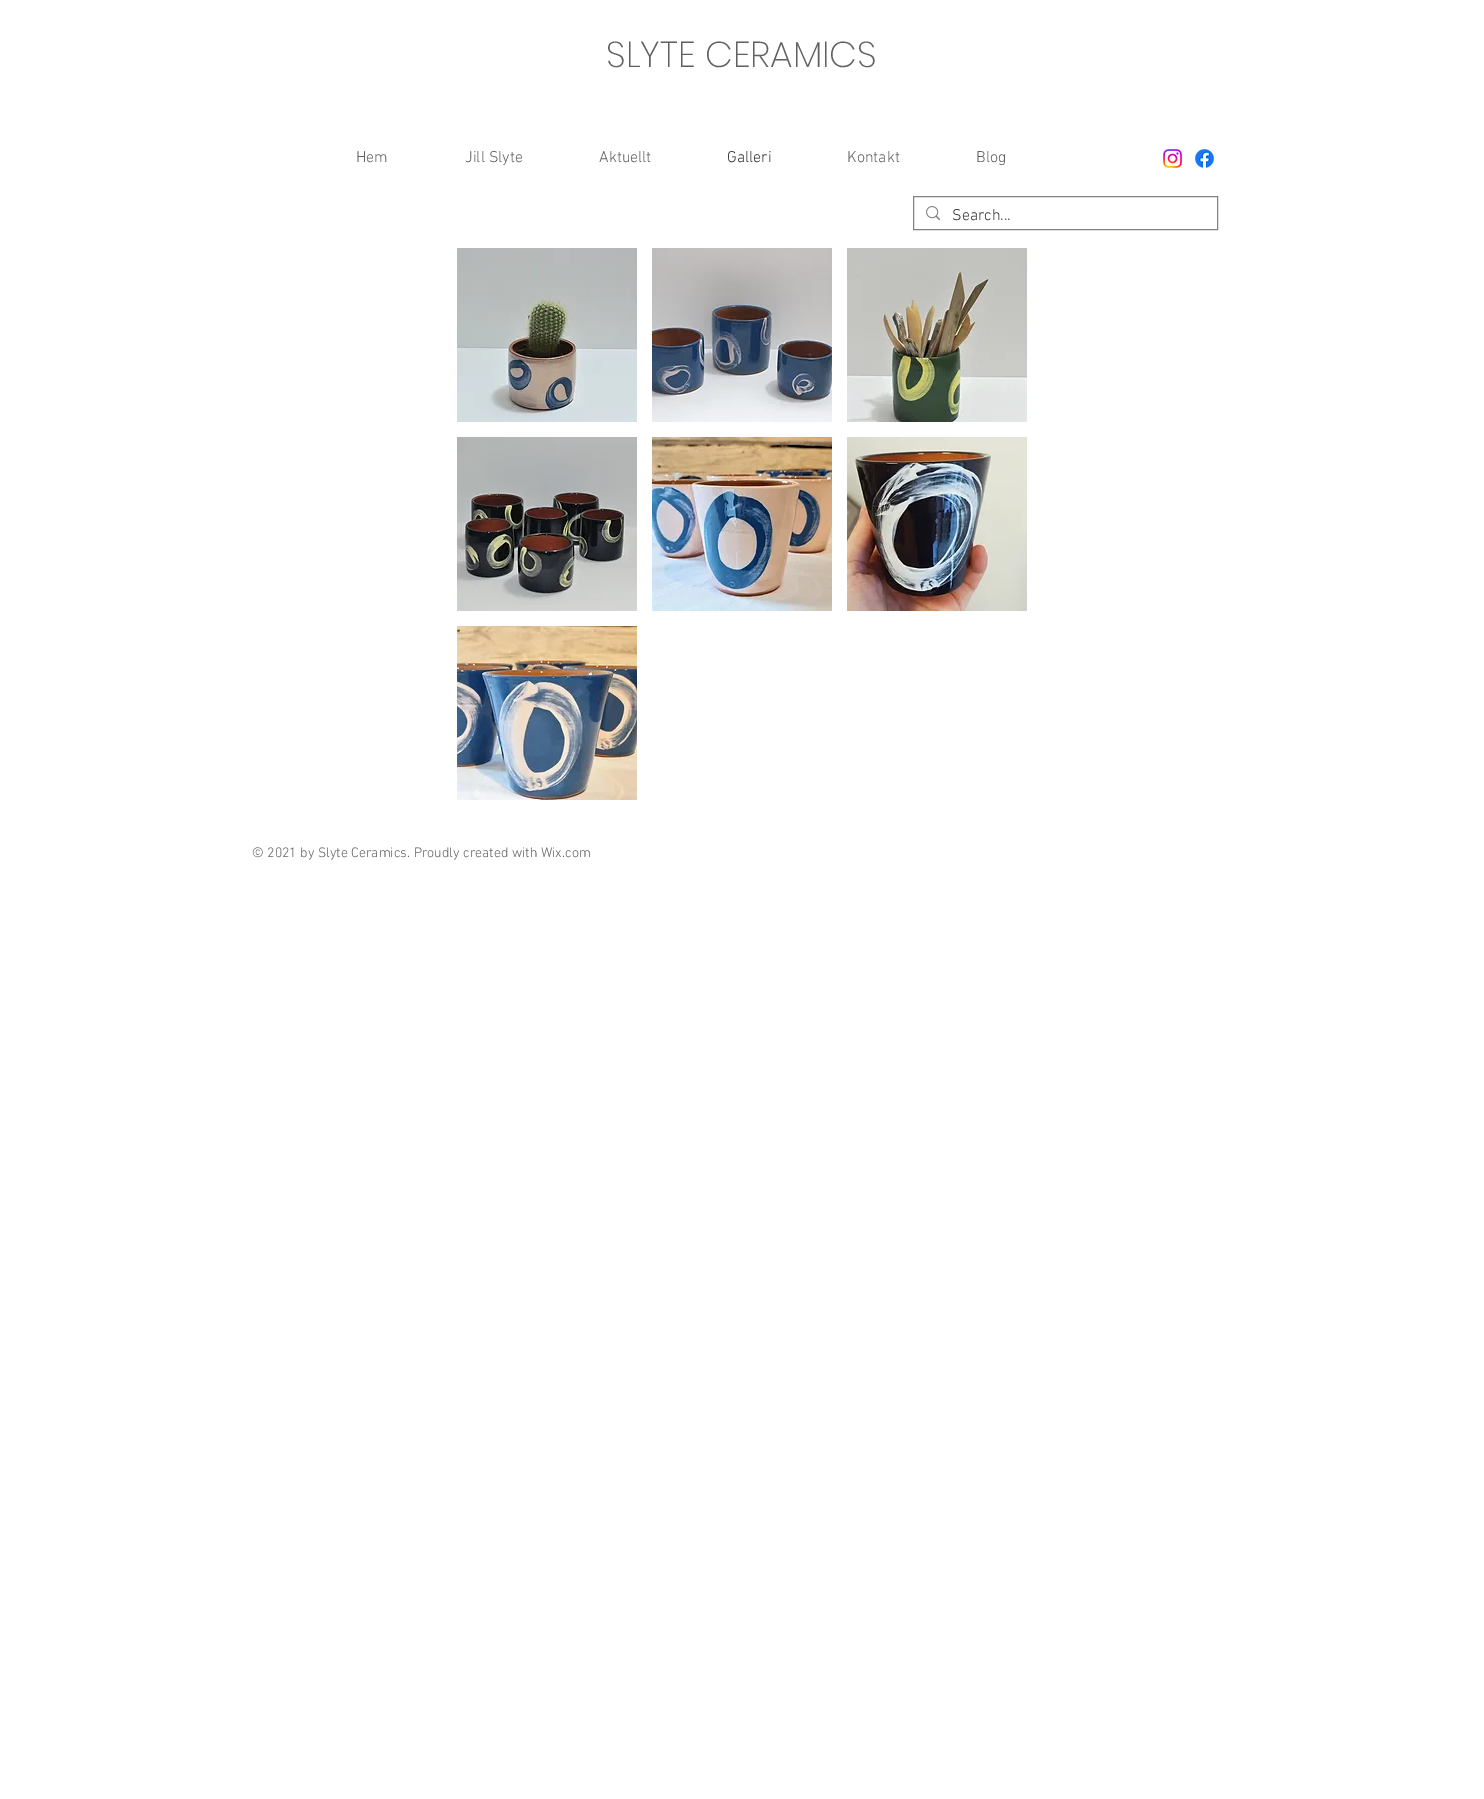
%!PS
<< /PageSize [1484 1799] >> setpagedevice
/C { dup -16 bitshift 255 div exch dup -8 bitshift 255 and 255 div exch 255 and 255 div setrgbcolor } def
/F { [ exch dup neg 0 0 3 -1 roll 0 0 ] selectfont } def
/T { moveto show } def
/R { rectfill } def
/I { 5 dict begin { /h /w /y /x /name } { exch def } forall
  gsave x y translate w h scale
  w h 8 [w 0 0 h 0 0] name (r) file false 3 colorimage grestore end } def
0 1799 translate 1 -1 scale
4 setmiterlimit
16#FFFFFF C
0 0 1484 1799 R
/Poppins-ExtraLight 36 F
16#606060 C
(SLYTE CERAMICS) 606 67 T
/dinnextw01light-Light 16 F
(Hem) 356 162 T
(Jill Slyte) 465 162 T
(Aktuellt) 599 162 T
16#303030 C
(Galleri) 727 162 T
16#606060 C
(Kontakt) 847 162 T
(Blog) 976 162 T
(1.rgb) 1163 149 19 19 I
(2.rgb) 1195 149 19 19 I
16#838383 C
913.5 196.5 304 33 rectstroke
(3.rgb) 926 206 14 14 I
16#303030 C
(Search...) 952 220 T
(4.rgb) 457 248 180 174 I
(5.rgb) 652 248 180 174 I
(6.rgb) 847 248 180 174 I
(7.rgb) 457 437 180 174 I
(8.rgb) 652 437 180 174 I
(9.rgb) 847 437 180 174 I
(10.rgb) 457 626 180 174 I
/dinnextw01light-Light 14 F
16#606060 C
(© 2021 by Slyte Ceramics. Proudly created with Wix.com) 252 857 T
showpage
